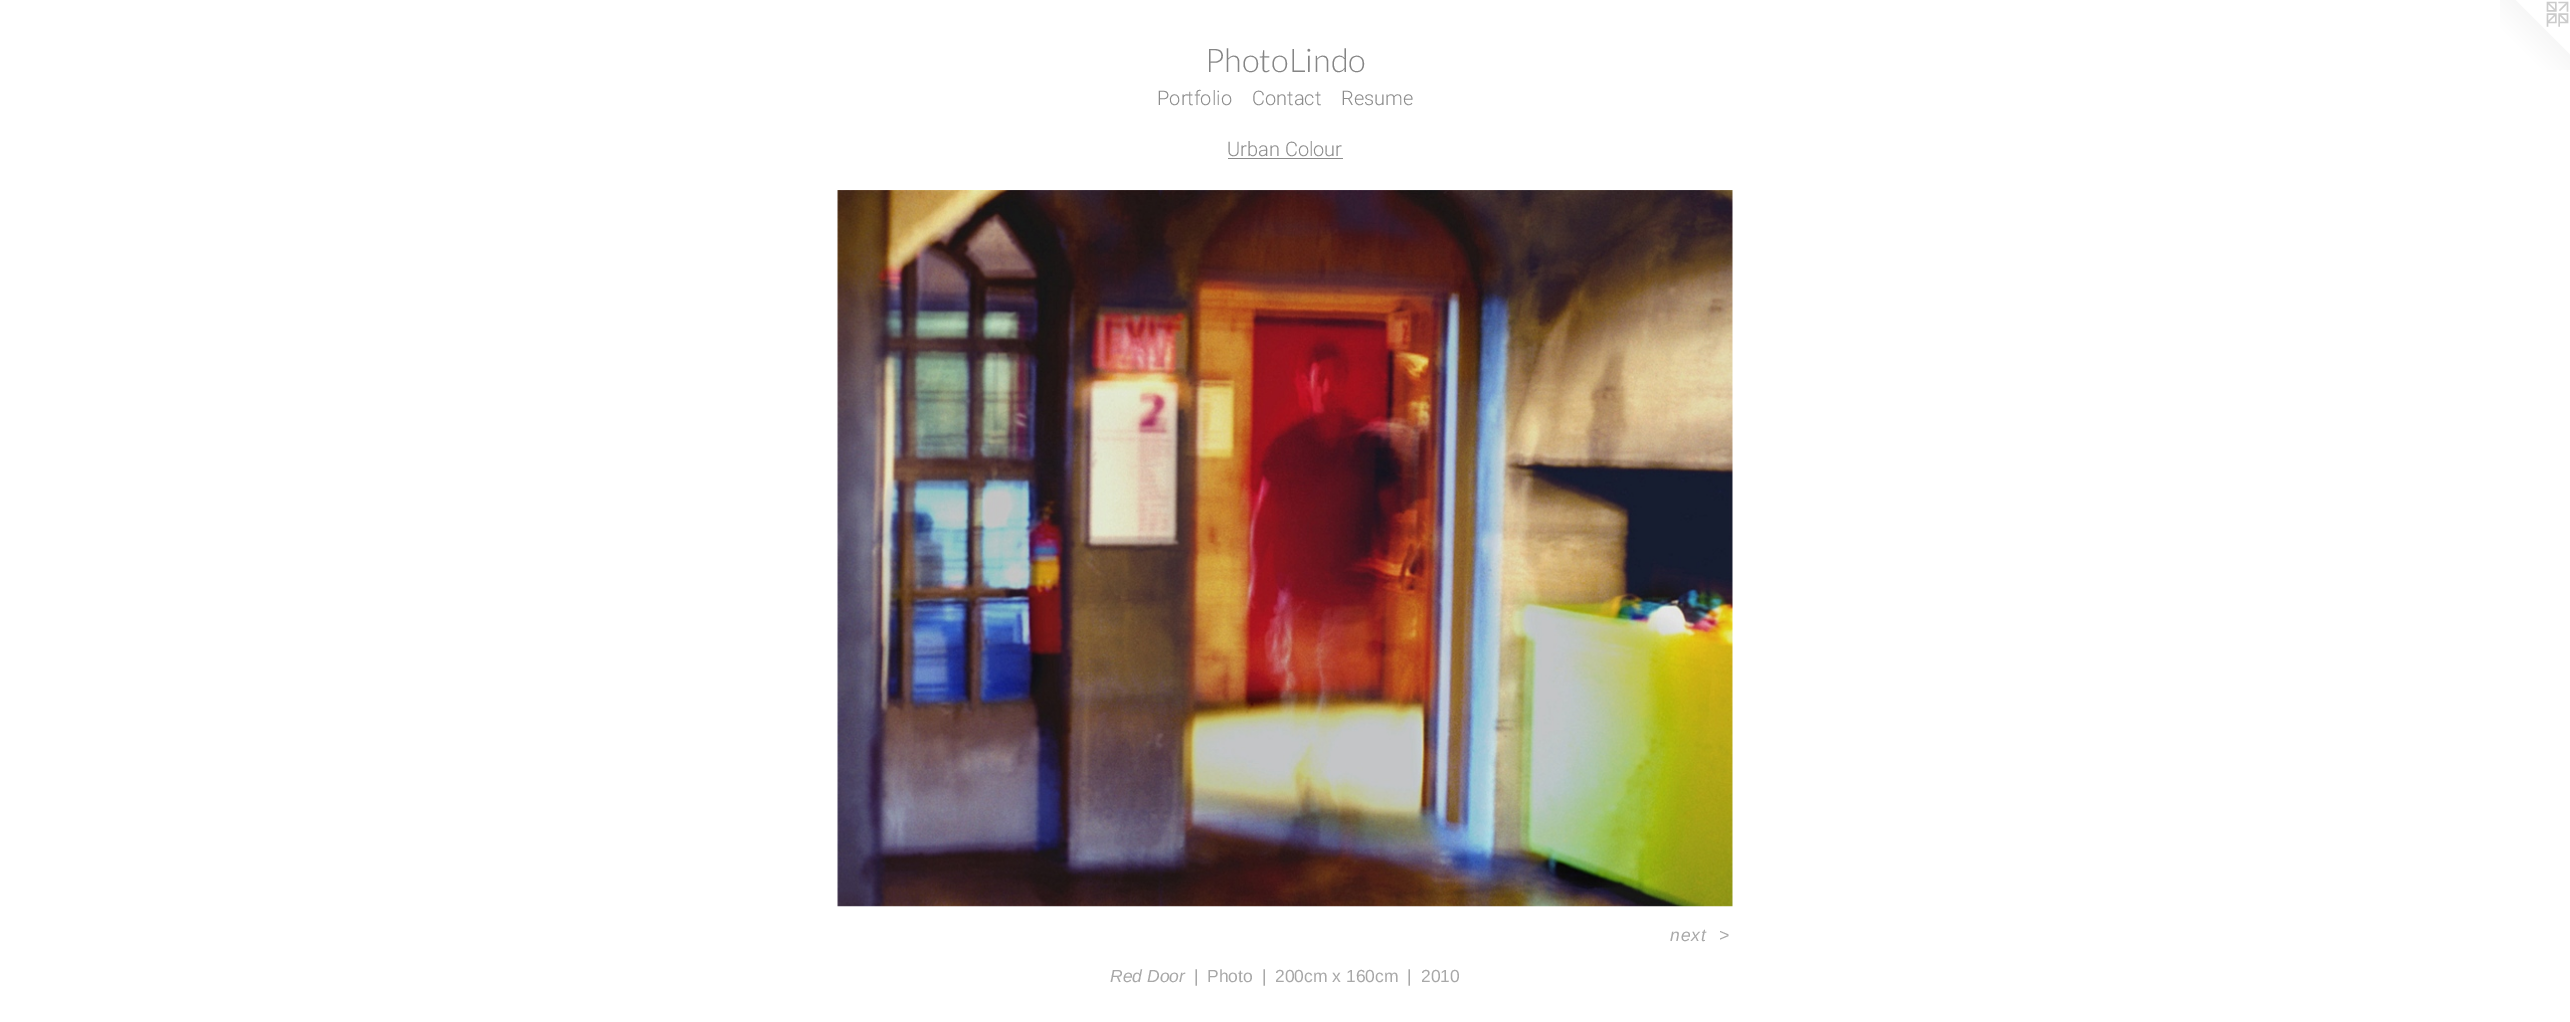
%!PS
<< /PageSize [2570 1022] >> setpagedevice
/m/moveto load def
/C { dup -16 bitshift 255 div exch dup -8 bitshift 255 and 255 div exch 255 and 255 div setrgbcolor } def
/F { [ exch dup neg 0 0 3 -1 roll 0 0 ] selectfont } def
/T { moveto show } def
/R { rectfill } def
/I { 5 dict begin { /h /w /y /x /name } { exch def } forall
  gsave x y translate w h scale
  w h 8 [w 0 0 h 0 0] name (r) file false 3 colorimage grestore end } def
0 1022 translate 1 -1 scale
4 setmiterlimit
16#FFFFFF C
0 0 2570 1022 R
/Lato-Light 32.5 F
16#858585 C
(PhotoLindo) 1205 72 T
(1.rgb) 2500 0 70 70 I
/Roboto-Light 20 F
16#8C8C8C C
(Portfolio) 1157 105 T
(Contact) 1252 105 T
(Resume) 1341 105 T
(Urban Colour) 1227 156 T
1228 158 115 1 R
(2.rgb) 837 190 896 717 I
/LiberationSans-Italic 17.5 F
16#A8A8A8 C
1670 941 m 1 0 (next) ashow
1719 941 m 1 0 (>) ashow
(Red Door) 1110 982 T
/LiberationSans-Regular 17.5 F
(|) 1194 982 T
(Photo) 1207 982 T
(|) 1262 982 T
(200cm x 160cm) 1275 982 T
(|) 1407 982 T
(2010) 1421 982 T
showpage
